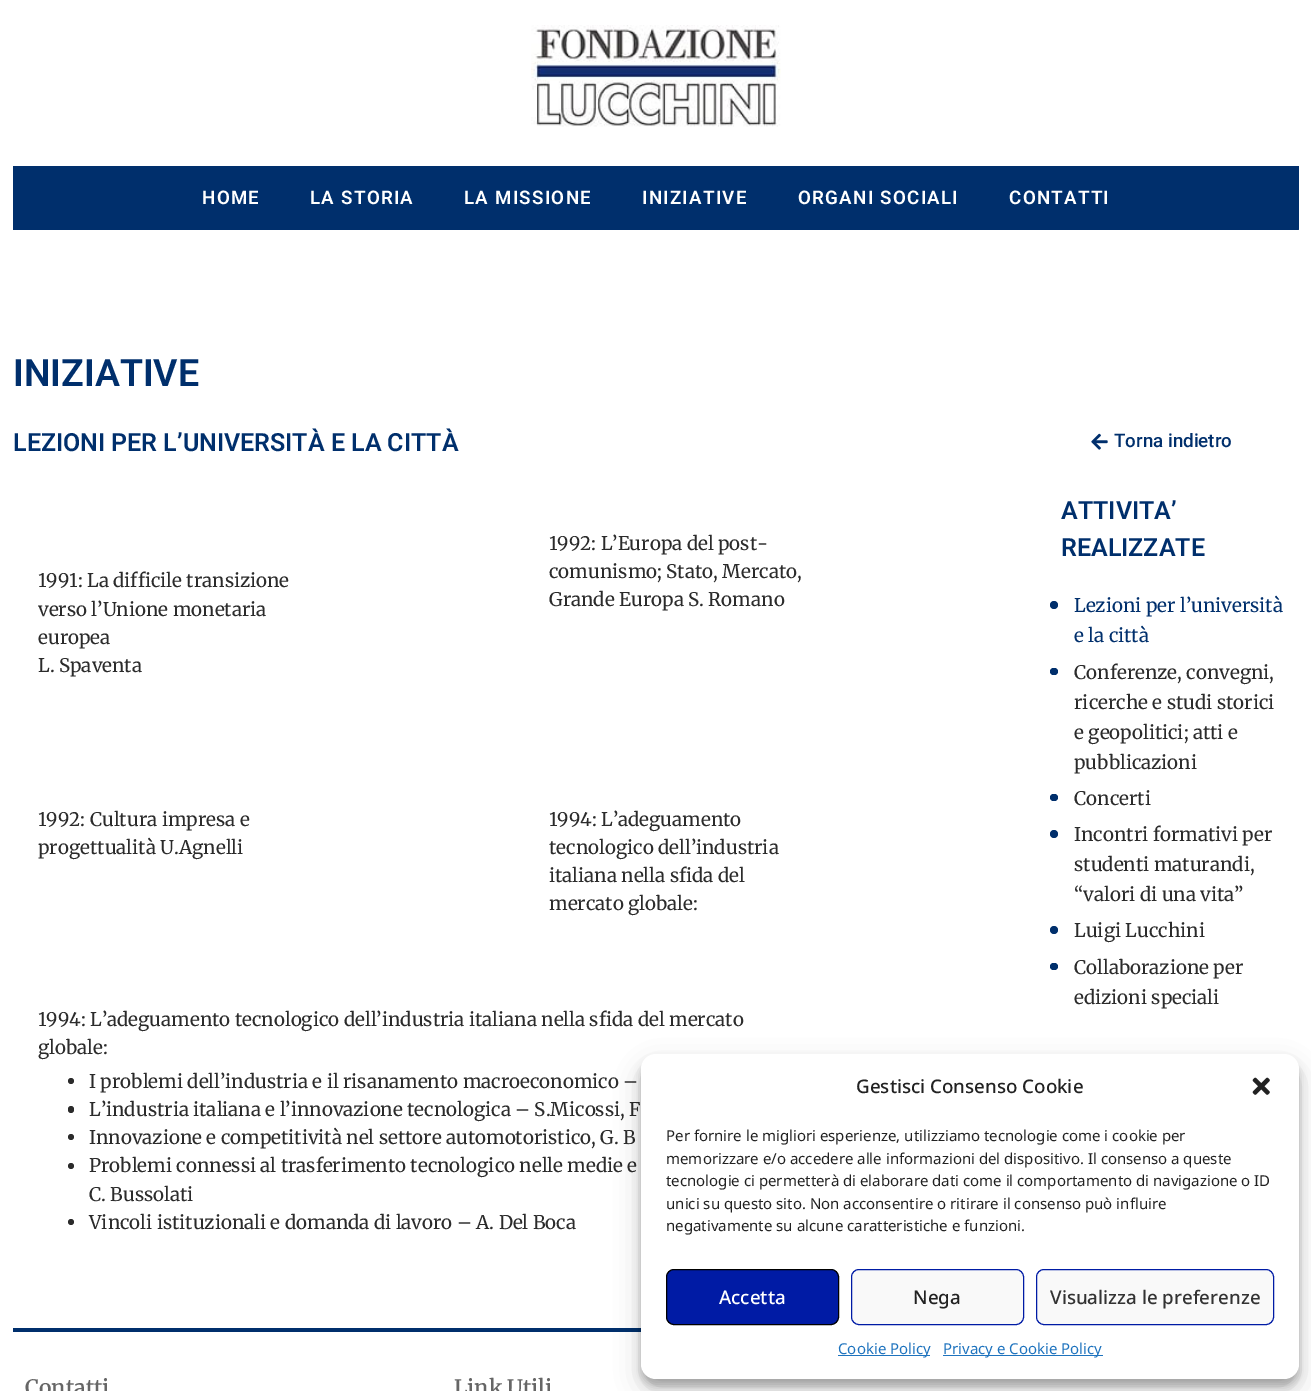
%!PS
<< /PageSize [1311 1391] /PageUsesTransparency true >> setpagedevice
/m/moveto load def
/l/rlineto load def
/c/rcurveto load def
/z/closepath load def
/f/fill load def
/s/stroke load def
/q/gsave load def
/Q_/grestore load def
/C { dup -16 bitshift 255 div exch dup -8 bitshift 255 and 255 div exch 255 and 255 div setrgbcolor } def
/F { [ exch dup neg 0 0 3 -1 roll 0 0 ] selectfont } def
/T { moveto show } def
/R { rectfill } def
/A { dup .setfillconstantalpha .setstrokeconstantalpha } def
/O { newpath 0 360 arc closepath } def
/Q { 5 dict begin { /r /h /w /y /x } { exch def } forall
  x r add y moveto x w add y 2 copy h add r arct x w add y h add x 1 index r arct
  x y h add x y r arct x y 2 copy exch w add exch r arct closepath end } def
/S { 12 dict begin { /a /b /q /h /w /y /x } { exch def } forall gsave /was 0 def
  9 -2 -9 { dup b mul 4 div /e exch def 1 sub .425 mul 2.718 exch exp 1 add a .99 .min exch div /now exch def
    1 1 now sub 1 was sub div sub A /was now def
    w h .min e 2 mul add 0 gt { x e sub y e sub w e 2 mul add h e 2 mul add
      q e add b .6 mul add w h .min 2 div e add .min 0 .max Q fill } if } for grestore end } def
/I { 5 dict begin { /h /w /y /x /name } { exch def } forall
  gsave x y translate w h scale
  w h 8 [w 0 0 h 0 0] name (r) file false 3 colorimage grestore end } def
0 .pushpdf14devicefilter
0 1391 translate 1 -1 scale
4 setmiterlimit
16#FFFFFF C
0 0 1311 1391 R
(1.rgb) 531 25 250 102 I
16#002F6C C
13 166 m 1286 0 l 0 63 l 0 .5 -.5 1 -1 1 c -1285 0 l z f
/Roboto-SemiBold 18.75 F
16#FFFFFF C
202 204 m 1.25 0 (HOME) ashow
310 204 m 1.25 0 (LA STORIA) ashow
464 204 m 1.25 0 (LA MISSIONE) ashow
642 204 m 1.25 0 (INIZIATIVE) ashow
798 204 m 1.25 0 (ORGANI SOCIALI) ashow
1009 204 m 1.25 0 (CONTATTI) ashow
/Roboto-SemiBold 37.5 F
16#002F6C C
(INIZIATIVE) 13 386 T
/Roboto-SemiBold 25 F
(LEZIONI PER L’UNIVERSITÀ E LA CITTÀ) 13 451 T
/Merriweather-Regular 18.75 F
16#2B2B2B C
(1991: La difficile transizione) 38 587 T
(verso l’Unione monetaria) 38 616 T
(europea) 38 644 T
(L. Spaventa) 38 672 T
(1992: L’Europa del post-) 549 550 T
(comunismo; Stato, Mercato,) 549 578 T
(Grande Europa S. Romano) 549 606 T
(1992: Cultura impresa e) 38 826 T
(progettualità U.Agnelli) 38 854 T
(1994: L’adeguamento) 549 826 T
(tecnologico dell’industria) 549 854 T
(italiana nella sfida del) 549 882 T
(mercato globale:) 549 910 T
(1994: L’adeguamento tecnologico dell’industria italiana nella sfida del mercato) 38 1026 T
(globale:) 38 1054 T
71 1081 3 O f
(I problemi dell’industria e il risanamento macroeconomico –) 89 1088 T
68 1106 6 7 3 Q f
(L’industria italiana e l’innovazione tecnologica – S.Micossi, F) 89 1116 T
71 1137 3 O f
(Innovazione e competitività nel settore automotoristico, G. B) 89 1144 T
71 1166 3 O f
(Problemi connessi al trasferimento tecnologico nelle medie e) 89 1172 T
(C. Bussolati) 89 1201 T
71 1222 3 O f
(Vincoli istituzionali e domanda di lavoro – A. Del Boca) 89 1229 T
(2.rgb) 1091 433 17 17 I
/Roboto-Medium 18.75 F
16#002F6C C
(Torna indietro) 1114 447 T
/Roboto-SemiBold 25 F
(ATTIVITA’) 1061 519 T
(REALIZZATE) 1061 556 T
1054 605 4 O f
/Merriweather-Regular 18.75 F
(Lezioni per l’università) 1074 612 T
(e la città) 1074 642 T
1050 668 8 7 3.5 Q f
16#2B2B2B C
(Conferenze, convegni,) 1074 679 T
(ricerche e studi storici) 1074 709 T
(e geopolitici; atti e) 1074 739 T
(pubblicazioni) 1074 769 T
16#002F6C C
1050 794 8 7 3.5 Q f
16#2B2B2B C
(Concerti) 1074 805 T
16#002F6C C
1054 834 4 O f
16#2B2B2B C
(Incontri formativi per) 1074 841 T
(studenti maturandi,) 1074 871 T
(“valori di una vita”) 1074 901 T
16#002F6C C
1054 930 4 O f
16#2B2B2B C
(Luigi Lucchini) 1074 937 T
16#002F6C C
1050 963 8 7 3.5 Q f
16#2B2B2B C
(Collaborazione per) 1074 974 T
(edizioni speciali) 1074 1004 T
16#002F6C C
13 1328 628 4 R
16#000000 C
641 1061 658 325 15 4 .23 S
641 1066 658 325 15 12.5 .19 S
16#FFFFFF C
641 1054 658 325 15 Q f
/NotoSans-Medium 18.75 F
16#222222 C
(Gestisci Consenso Cookie) 856 1093 T
(3.rgb) 1252 1077 18 18 I
/NotoSans-Regular 15 F
(Per fornire le migliori esperienze, utilizziamo tecnologie come i cookie per) 666 1141 T
(memorizzare e/o accedere alle informazioni del dispositivo. Il consenso a queste) 666 1164 T
(tecnologie ci permetterà di elaborare dati come il comportamento di navigazione o ID) 666 1186 T
(unici su questo sito. Non acconsentire o ritirare il consenso può influire) 666 1209 T
(negativamente su alcune caratteristiche e funzioni.) 666 1231 T
16#001BA5 C
666.5 1269.5 172 55 7.5 Q q f Q_
16#000000 C
s
/NotoSans-Medium 18.75 F
16#FFFFFF C
(Accetta) 719 1304 T
16#F9F9F9 C
851.5 1269.5 172 55 7.5 Q q f Q_
16#001BA5 C
s
16#222222 C
(Nega) 913 1304 T
16#F9F9F9 C
1036.5 1269.5 237 55 7.5 Q q f Q_
16#001BA5 C
s
16#333333 C
(Visualizza le preferenze) 1050 1304 T
16#1E73BE C
838 1355 92 1 R
/NotoSans-Regular 15 F
(Cookie Policy) 838 1354 T
943 1355 160 1 R
(Privacy e Cookie Policy) 943 1354 T
/Merriweather-SemiBold 21.25 F
16#666666 C
(Contatti) 25 1395 T
(Link Utili) 454 1395 T
.poppdf14devicefilter showpage
